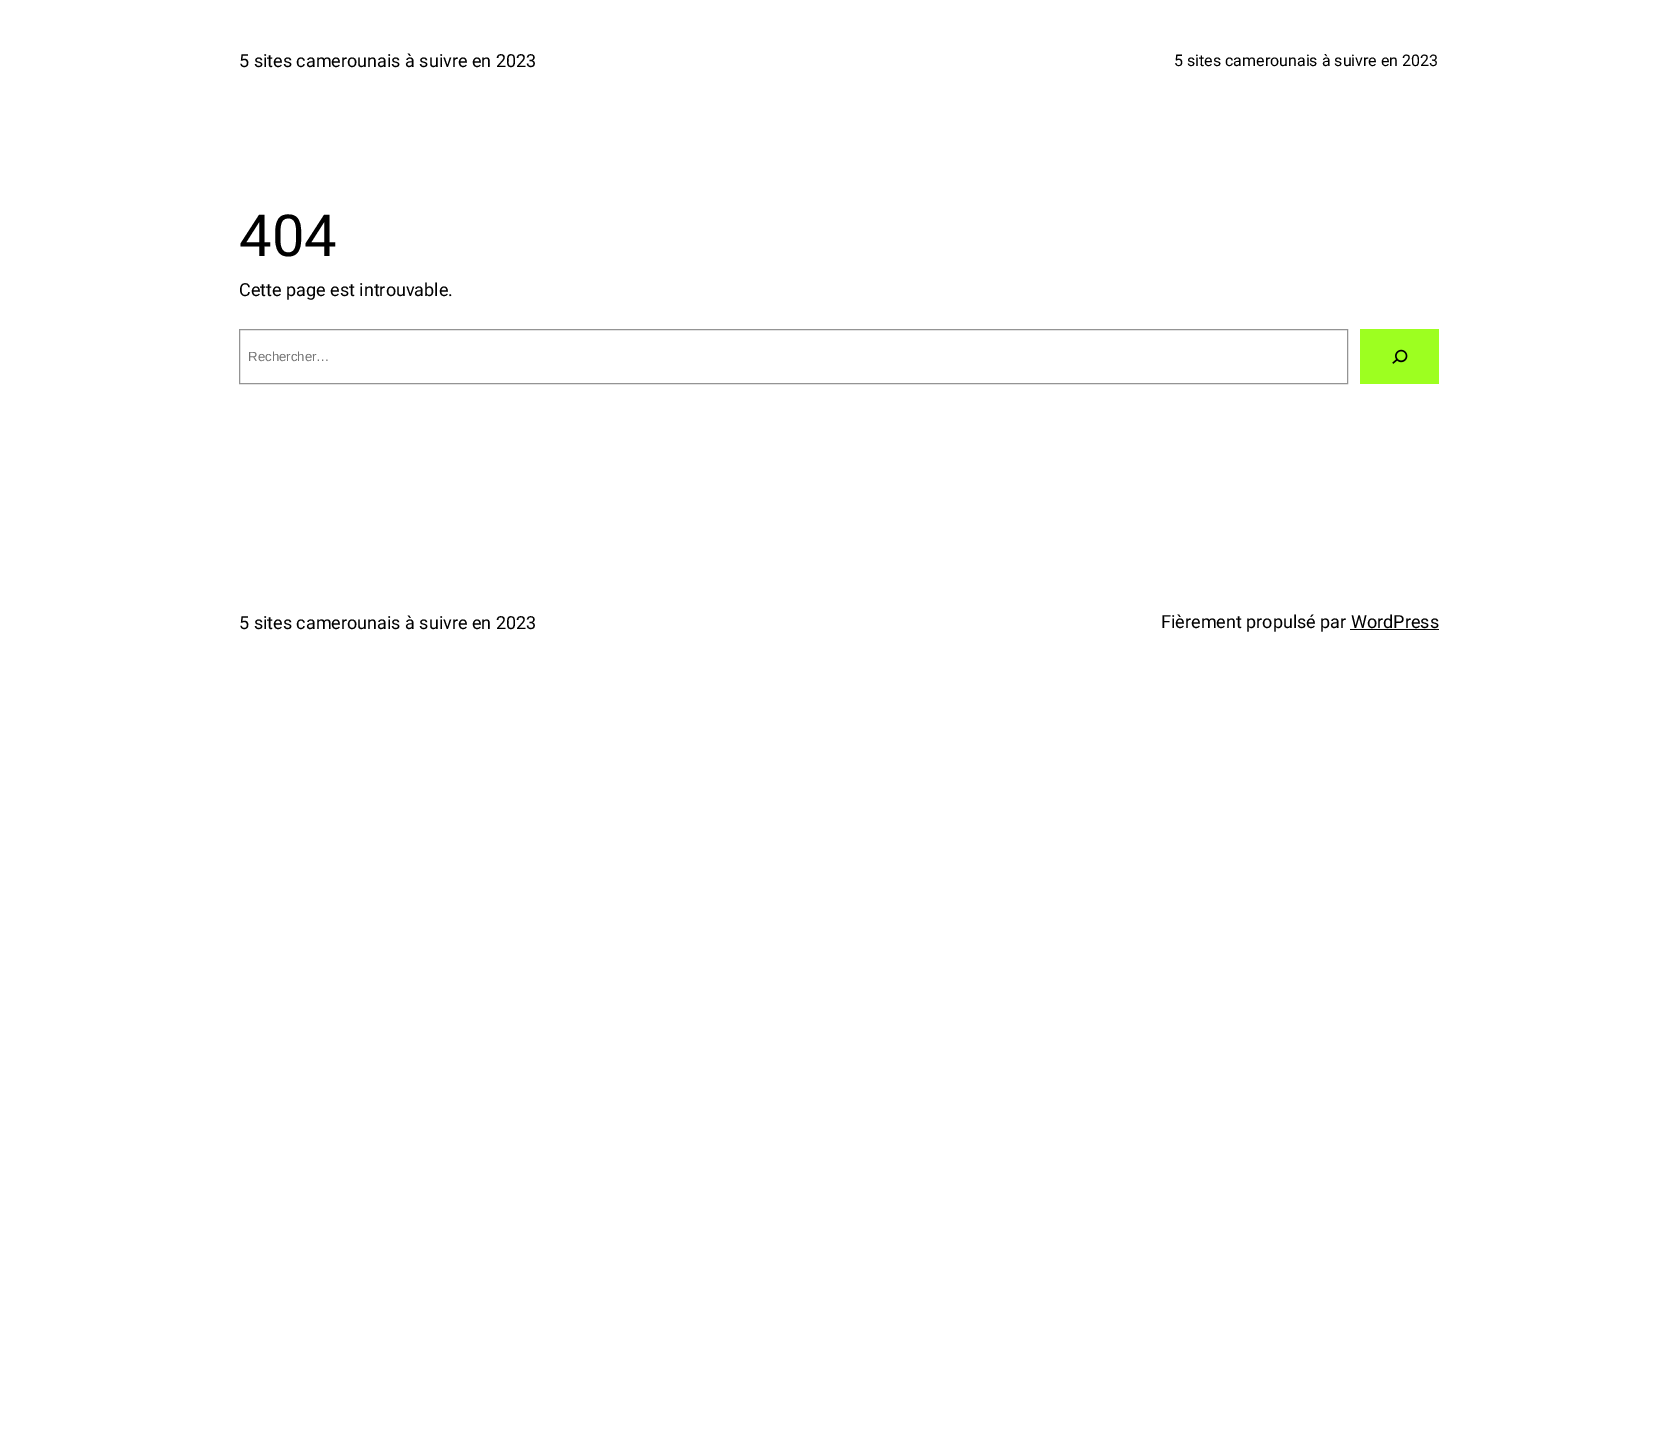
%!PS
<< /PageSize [1677 1450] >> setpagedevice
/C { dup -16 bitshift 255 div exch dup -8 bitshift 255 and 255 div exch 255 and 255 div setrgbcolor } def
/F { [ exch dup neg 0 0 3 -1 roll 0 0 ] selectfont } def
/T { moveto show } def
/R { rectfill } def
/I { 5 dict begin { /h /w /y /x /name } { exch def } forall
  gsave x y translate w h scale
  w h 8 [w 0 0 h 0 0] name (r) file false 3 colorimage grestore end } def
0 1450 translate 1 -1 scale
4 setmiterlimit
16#FFFFFF C
0 0 1677 1450 R
/Roboto-Regular 18 F
16#000000 C
(5 sites camerounais à suivre en 2023) 239 67 T
/Roboto-Regular 16 F
(5 sites camerounais à suivre en 2023) 1174 66 T
/Roboto-Regular 58 F
(404) 239 256 T
/Roboto-Regular 18 F
(Cette page est introuvable.) 239 296 T
16#949494 C
239.5 329.5 1108 54 rectstroke
/LiberationSans-Regular 13.25 F
16#757575 C
(Rechercher…) 248 361 T
16#9DFF20 C
1360 329 79 55 R
(1.rgb) 1392 349 16 15 I
/Roboto-Regular 18 F
16#000000 C
(5 sites camerounais à suivre en 2023) 239 629 T
(Fièrement propulsé par WordPress) 1161 628 T
1350 629 89 1 R
showpage
